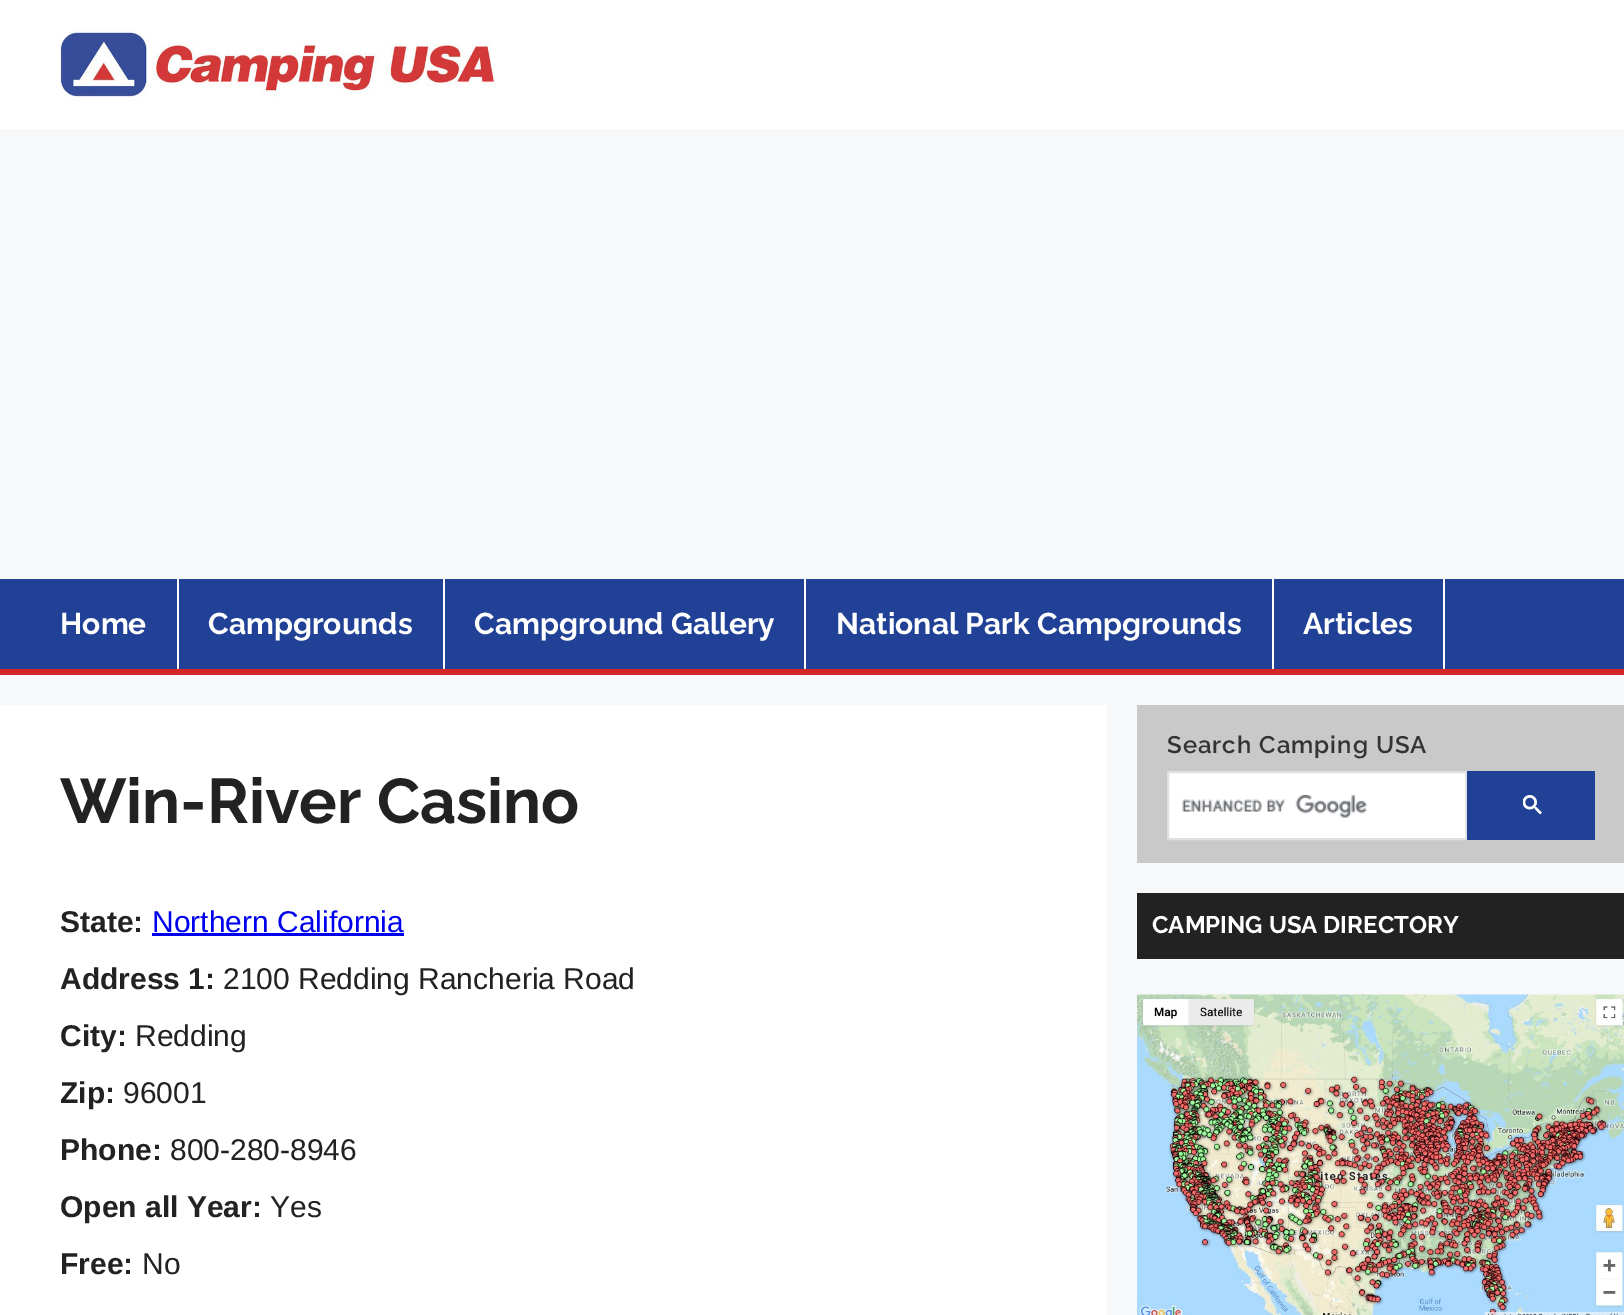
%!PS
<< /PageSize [1624 1315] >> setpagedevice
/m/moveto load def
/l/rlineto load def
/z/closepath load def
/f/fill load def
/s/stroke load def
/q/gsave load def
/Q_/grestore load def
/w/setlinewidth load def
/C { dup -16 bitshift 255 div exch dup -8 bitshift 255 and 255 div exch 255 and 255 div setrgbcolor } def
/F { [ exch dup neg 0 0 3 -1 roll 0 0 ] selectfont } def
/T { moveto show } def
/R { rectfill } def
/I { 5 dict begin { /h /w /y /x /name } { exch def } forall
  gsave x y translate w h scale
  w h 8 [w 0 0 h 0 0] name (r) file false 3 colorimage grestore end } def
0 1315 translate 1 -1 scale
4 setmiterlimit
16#F7F8F9 C
0 0 1624 1315 R
16#FFFFFF C
0 0 1624 129 R
(1.rgb) 60 30 435 69 I
16#214196 C
0 579 1624 90 R
16#D32525 C
0 669 1624 6 R
16#FFFFFF C
177 579 2 90 R
/Raleway-Bold 30 F
(Home) 60 634 T
443 579 2 90 R
(Campgrounds) 208 634 T
804 579 2 90 R
(Campground Gallery) 474 634 T
1272 579 2 90 R
(National Park Campgrounds) 836 634 T
1443 579 2 90 R
(Articles) 1303 634 T
0 705 1107 610 R
/Raleway-Bold 63 F
16#222222 C
(Win-River Casino) 60 823 T
/LiberationSans-Bold 30 F
(State:) 60 932 T
/LiberationSans-Regular 30 F
16#0000EE C
(Northern California) 152 932 T
152 933 252 3 R
/LiberationSans-Bold 30 F
16#222222 C
(Address 1:) 60 989 T
/LiberationSans-Regular 30 F
(2100 Redding Rancheria Road) 223 989 T
/LiberationSans-Bold 30 F
(City:) 60 1046 T
/LiberationSans-Regular 30 F
(Redding) 135 1046 T
/LiberationSans-Bold 30 F
(Zip:) 60 1103 T
/LiberationSans-Regular 30 F
(96001) 123 1103 T
/LiberationSans-Bold 30 F
(Phone:) 60 1160 T
/LiberationSans-Regular 30 F
(800-280-8946) 170 1160 T
/LiberationSans-Bold 30 F
(Open all Year:) 60 1217 T
/LiberationSans-Regular 30 F
(Yes) 270 1217 T
/LiberationSans-Bold 30 F
(Free:) 60 1274 T
/LiberationSans-Regular 30 F
(No) 142 1274 T
16#C9C9C9 C
1137 705 487 158 R
/Raleway-SemiBold 24 F
16#333333 C
1167 753 m 1 0 (Search Camping USA) ashow
16#FFFFFF C
1168 772 m 298 0 l 0 67 l -298 0 l z q f Q_
16#DFE1E5 C
2 w
s
(2.rgb) 1182 795 185 23 I
16#214196 C
1467 771 128 69 R
(3.rgb) 1523 795 19 20 I
16#222222 C
1137 893 487 66 R
/Raleway-Bold 24 F
16#FFFFFF C
(CAMPING USA DIRECTORY) 1152 933 T
(4.rgb) 1137 994 487 321 I
showpage
